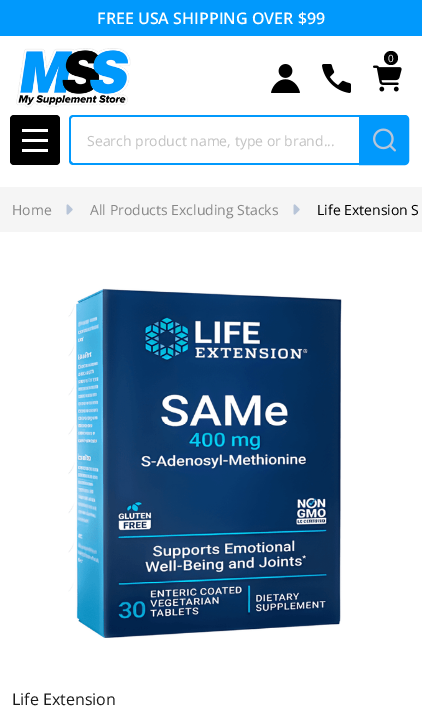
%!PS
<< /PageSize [437 709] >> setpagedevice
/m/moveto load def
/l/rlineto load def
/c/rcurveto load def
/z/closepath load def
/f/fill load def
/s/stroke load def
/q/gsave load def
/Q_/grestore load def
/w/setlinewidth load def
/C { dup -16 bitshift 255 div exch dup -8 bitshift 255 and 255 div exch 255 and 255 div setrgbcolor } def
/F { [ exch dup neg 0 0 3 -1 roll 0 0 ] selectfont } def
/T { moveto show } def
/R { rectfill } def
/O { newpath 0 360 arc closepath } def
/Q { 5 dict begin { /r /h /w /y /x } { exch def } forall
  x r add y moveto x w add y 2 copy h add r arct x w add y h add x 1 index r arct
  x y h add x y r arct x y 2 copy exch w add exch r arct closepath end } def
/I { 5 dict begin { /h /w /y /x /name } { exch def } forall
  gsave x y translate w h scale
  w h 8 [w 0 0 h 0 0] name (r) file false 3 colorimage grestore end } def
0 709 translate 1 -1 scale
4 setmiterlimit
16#FFFFFF C
0 0 437 709 R
16#0199FC C
0 0 422 36 R
/OpenSans-SemiBold 16 F
16#FFFFFF C
(FREE USA SHIPPING OVER $99) 97 24 T
(1.rgb) 16 48 115 60 I
16#000000 C
391 58 7 O f
/OpenSans-Regular 10 F
16#FFFFFF C
(0) 388 62 T
(2.rgb) 373 65 29 27 I
(3.rgb) 271 64 29 29 I
(4.rgb) 322 64 29 29 I
16#000000 C
10 115 50 50 4 Q f
16#FFFFFF C
22 139 26 3 R
22 129 26 3 R
22 149 26 3 R
16#0199FC C
73 115 m 286 0 l 0 50 l -286 0 l -2 0 -4 -2 -4 -4 c 0 -42 l 0 -2 2 -4 4 -4 c z 73 117 m 286 0 l 0 46 l -286 0 l -2 -2 l 0 -42 l 0 -1 1 -2 2 -2 c z eofill
/OpenSans-Regular 14 F
16#C2C2C2 C
(Search product name, type or brand...) 87 146 T
16#0199FC C
360 116 m 45 0 l 1.5 0 3 1.5 3 3 c 0 42 l 0 1.5 -1.5 3 -3 3 c -45 0 l z q f Q_
2 w
s
(5.rgb) 373 128 23 24 I
16#F5F5F5 C
0 187 422 45 R
16#888888 C
(Home) 12 215 T
(6.rgb) 66 204 7 11 I
(All Products Excluding Stacks) 90 215 T
(6.rgb) 293 204 7 11 I
16#000000 C
(Life Extension S) 317 215 T
(7.rgb) 68 288 274 350 I
/OpenSans-Regular 16 F
16#1A1A1A C
(Life Extension) 12 705 T
showpage
